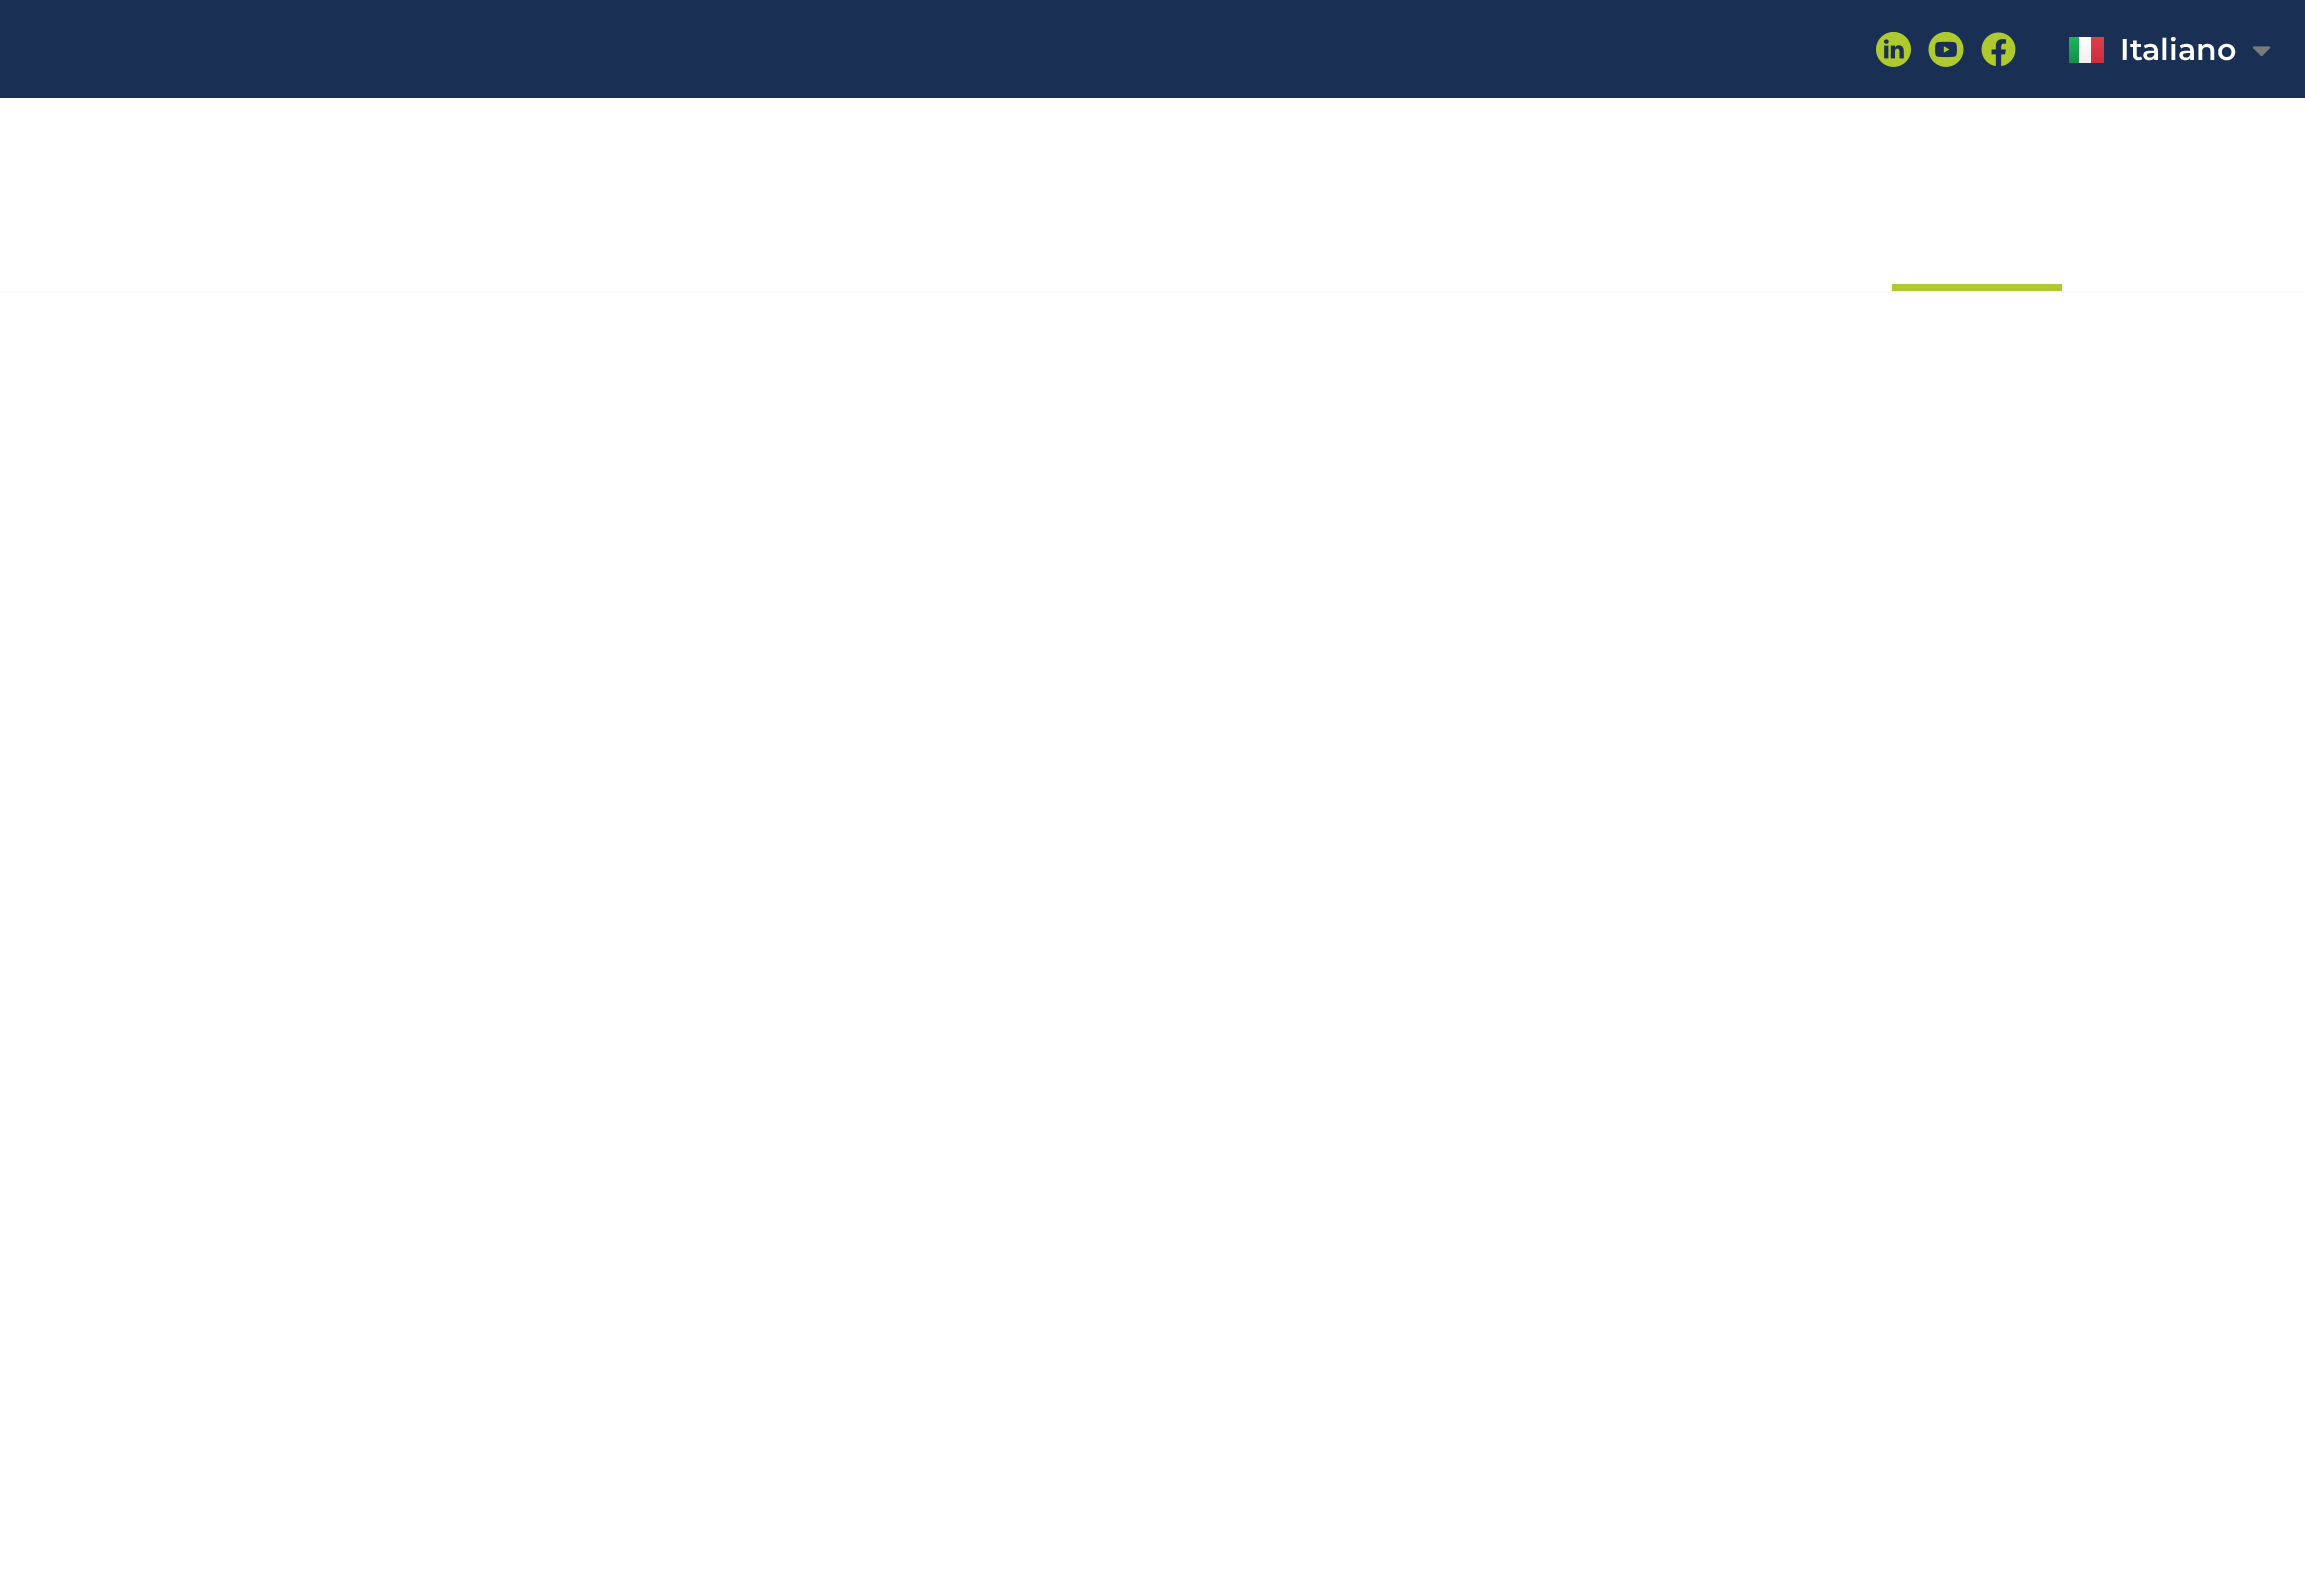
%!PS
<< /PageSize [2305 1576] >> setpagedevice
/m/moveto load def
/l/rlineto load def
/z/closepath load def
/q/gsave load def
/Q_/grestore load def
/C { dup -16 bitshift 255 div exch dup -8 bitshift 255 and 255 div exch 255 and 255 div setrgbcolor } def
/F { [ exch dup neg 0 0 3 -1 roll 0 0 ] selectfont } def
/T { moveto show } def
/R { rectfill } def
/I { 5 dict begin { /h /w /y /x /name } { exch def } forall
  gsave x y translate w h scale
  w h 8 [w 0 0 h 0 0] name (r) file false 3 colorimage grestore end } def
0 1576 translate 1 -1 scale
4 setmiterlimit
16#FFFFFF C
0 0 2305 1576 R
16#FBFCFD C
0 291 2305 2 R
16#192F54 C
0 0 2305 98 R
(1.rgb) 1876 31 35 36 I
(2.rgb) 1928 31 36 36 I
(3.rgb) 1981 32 35 35 I
q 2069 37 m 10 0 l 0 26 l -10 0 l z clip newpath
<< /ShadingType 2 /ColorSpace /DeviceRGB /Coords [2073 37 2073 63] /Extend [true true] /Function << /FunctionType 2 /Domain [0 1] /C0 [.106 .714 .365] /C1 [.075 .569 .286] /N 1 >> >> shfill Q_
q 2079 37 m 12 0 l 0 26 l -12 0 l z clip newpath
<< /ShadingType 2 /ColorSpace /DeviceRGB /Coords [2085 37 2085 63] /Extend [true true] /Function << /FunctionType 2 /Domain [0 1] /C0 [1 1 1] /C1 [.941 .941 .941] /N 1 >> >> shfill Q_
q 2091 37 m 13 0 l 0 26 l -13 0 l z clip newpath
<< /ShadingType 2 /ColorSpace /DeviceRGB /Coords [2094 37 2094 63] /Extend [true true] /Function << /FunctionType 2 /Domain [0 1] /C0 [.894 .239 .298] /C1 [.8 .18 .235] /N 1 >> >> shfill Q_
/Montserrat-SemiBold 30 F
16#FFFFFF C
(Italiano) 2120 60 T
(4.rgb) 2253 46 18 11 I
16#AECA2E C
1892 284 170 7 R
showpage
